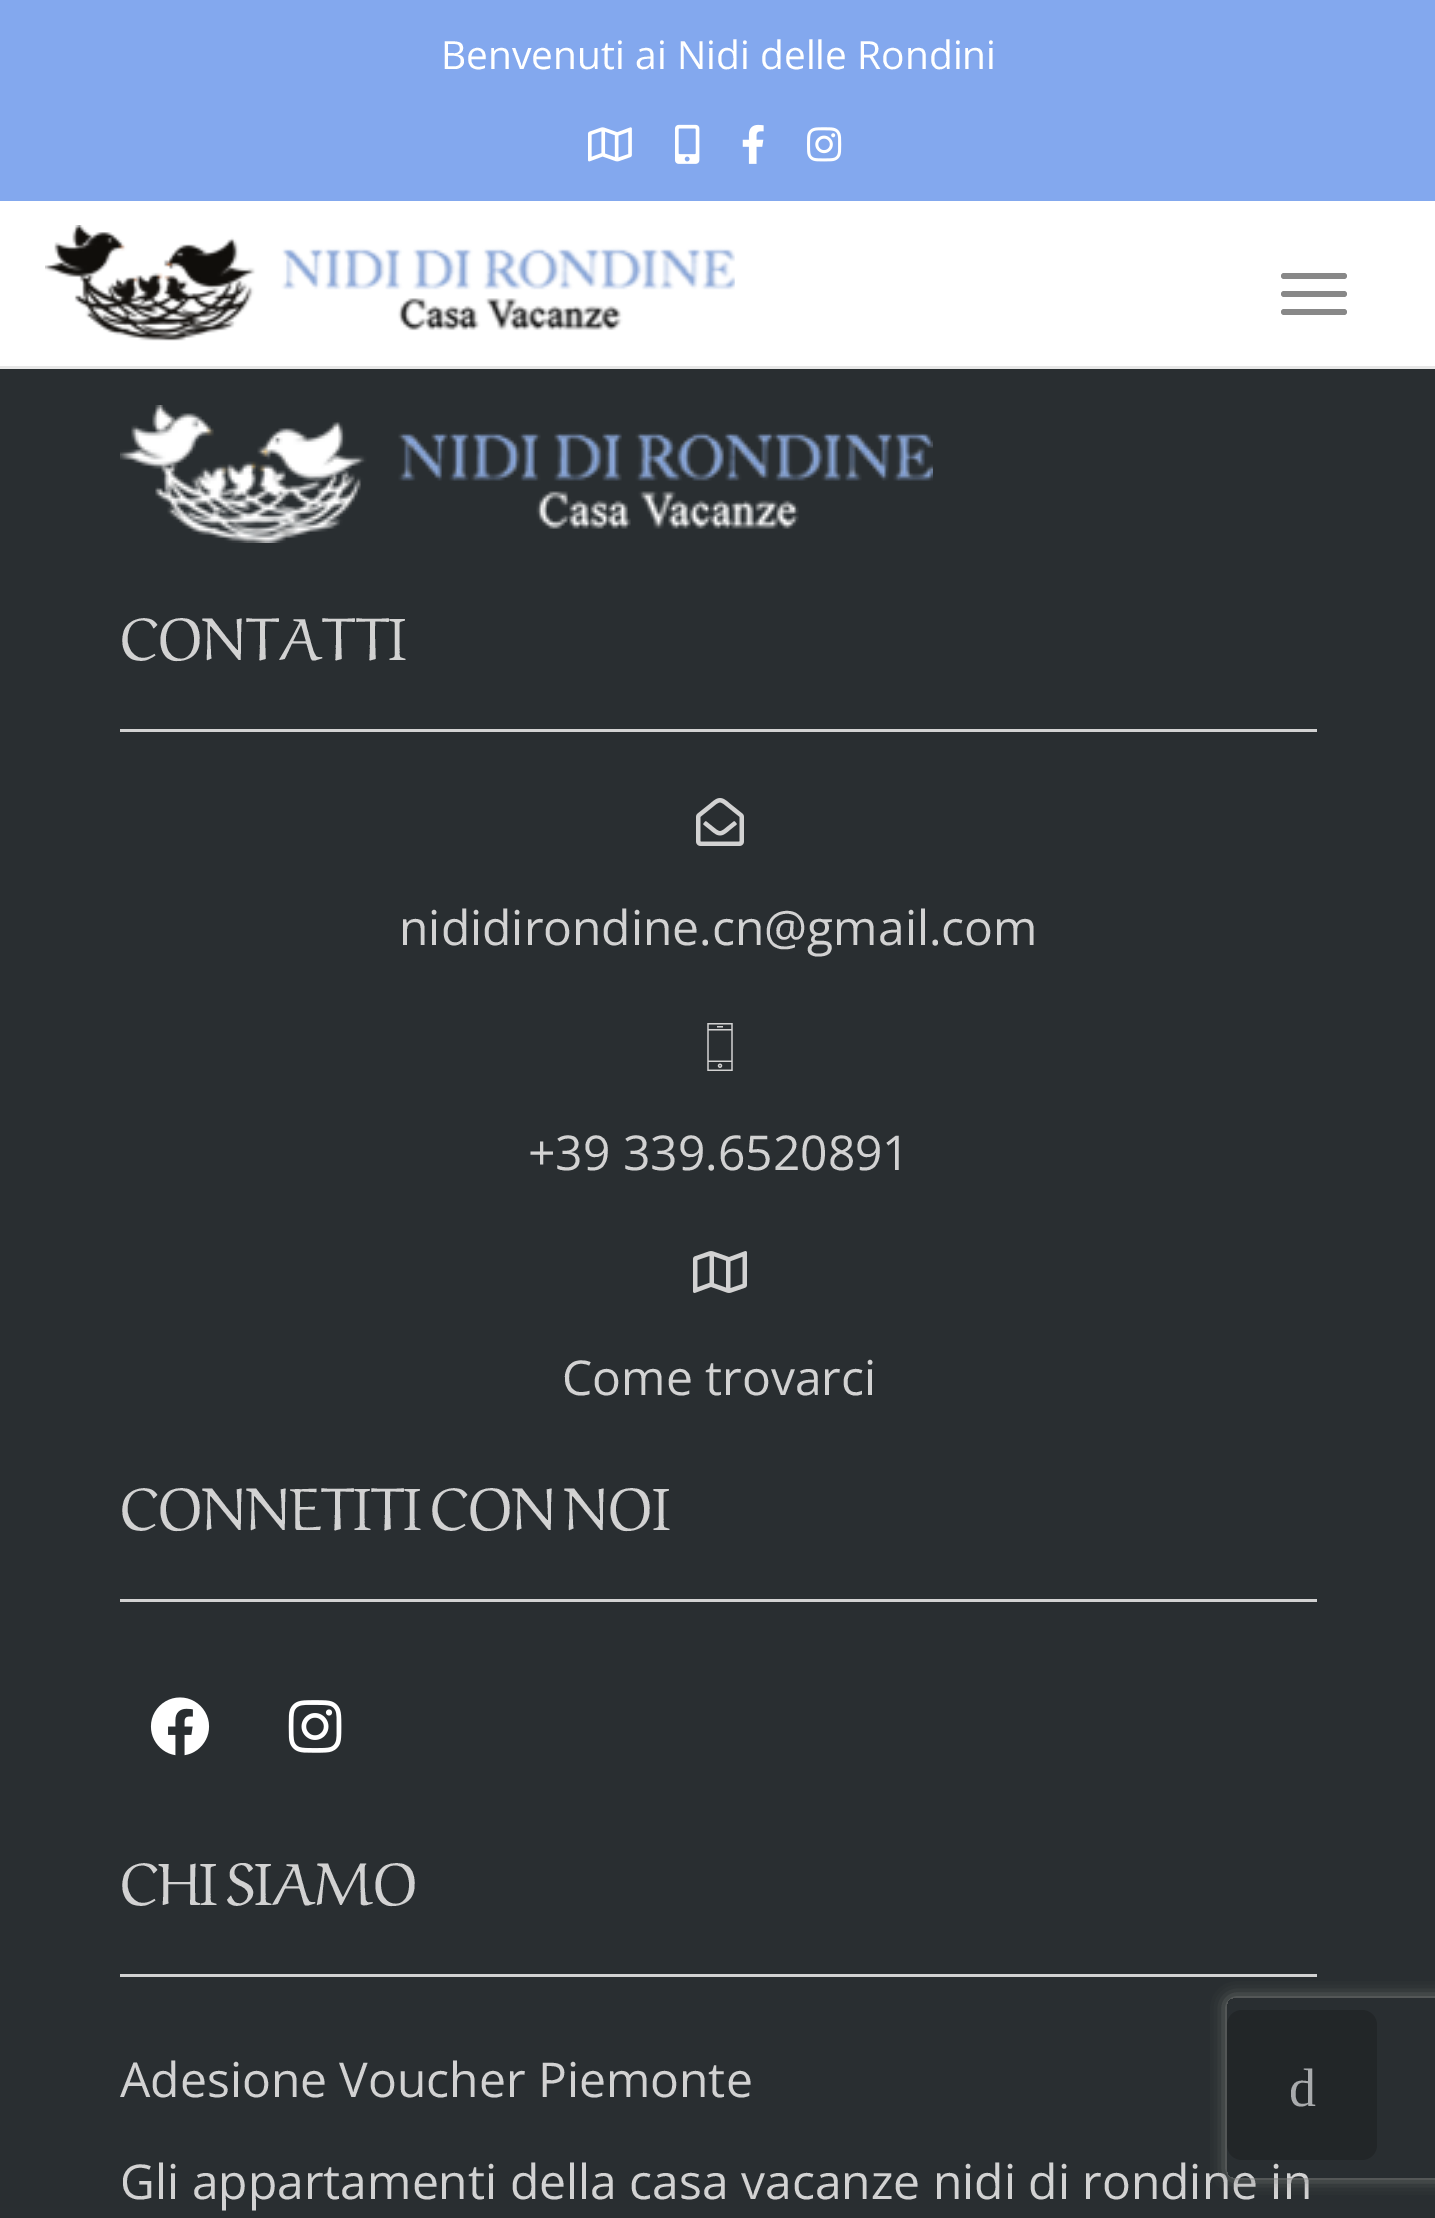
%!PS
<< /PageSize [1435 2218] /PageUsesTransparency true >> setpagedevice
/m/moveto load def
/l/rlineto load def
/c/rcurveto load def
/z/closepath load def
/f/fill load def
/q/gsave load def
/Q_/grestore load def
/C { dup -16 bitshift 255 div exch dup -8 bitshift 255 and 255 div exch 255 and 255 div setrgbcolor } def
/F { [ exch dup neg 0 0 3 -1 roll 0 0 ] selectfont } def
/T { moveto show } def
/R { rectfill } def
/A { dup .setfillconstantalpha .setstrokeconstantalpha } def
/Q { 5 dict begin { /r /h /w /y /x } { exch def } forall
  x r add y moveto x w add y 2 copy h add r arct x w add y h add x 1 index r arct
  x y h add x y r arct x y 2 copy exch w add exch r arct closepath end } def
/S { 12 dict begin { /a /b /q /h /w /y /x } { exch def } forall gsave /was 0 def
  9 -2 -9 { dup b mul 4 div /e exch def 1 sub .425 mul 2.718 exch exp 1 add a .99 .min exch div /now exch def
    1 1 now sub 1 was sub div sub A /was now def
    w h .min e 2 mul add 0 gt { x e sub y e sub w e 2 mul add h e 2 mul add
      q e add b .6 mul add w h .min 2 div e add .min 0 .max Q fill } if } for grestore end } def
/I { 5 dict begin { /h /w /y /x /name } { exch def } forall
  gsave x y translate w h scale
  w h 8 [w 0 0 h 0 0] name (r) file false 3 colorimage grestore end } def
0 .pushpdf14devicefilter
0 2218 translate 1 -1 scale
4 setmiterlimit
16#292E31 C
0 0 1435 2218 R
16#FFFFFF C
0 201 1435 165 R
16#E7E7E7 C
0 366 1435 3 R
16#83A8EE C
0 0 1435 201 R
/OpenSans-Regular 39 F
16#FFFFFF C
(Benvenuti ai Nidi delle Rondini) 441 69 T
(1.rgb) 588 127 44 35 I
(2.rgb) 675 124 25 40 I
(3.rgb) 742 124 22 40 I
(4.rgb) 807 127 35 35 I
(5.rgb) 45 225 690 116 I
16#888888 C
1281 273 66 6 3 Q f
1281 291 66 6 3 Q f
1281 309 66 6 3 Q f
(6.rgb) 120 405 813 138 I
/ArefRuqaa-Regular 60 F
16#D2D2D2 C
(CONTATTI) 120 660 T
120 729 1197 3 R
(7.rgb) 696 798 48 48 I
/OpenSans-Regular 48 F
(nididirondine.cn@gmail.com) 399 945 T
(8.rgb) 707 1023 26 48 I
(+39 339.6520891) 528 1170 T
(9.rgb) 693 1251 54 42 I
(Come trovarci) 562 1395 T
/ArefRuqaa-Regular 60 F
(CONNETITI CON NOI) 120 1530 T
120 1599 1197 3 R
(10.rgb) 150 1697 60 59 I
(11.rgb) 288 1700 54 53 I
(CHI SIAMO) 120 1905 T
120 1974 1197 3 R
/OpenSans-Regular 48 F
(Adesione Voucher Piemonte) 120 2097 T
(Gli appartamenti della casa vacanze nidi di rondine in) 120 2199 T
q
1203 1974 m 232 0 l 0 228 l -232 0 l z 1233 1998 m 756 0 l 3.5 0 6 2.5 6 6 c 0 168 l 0 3.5 -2.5 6 -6 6 c -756 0 l -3.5 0 -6 -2.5 -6 -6 c 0 -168 l 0 -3.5 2.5 -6 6 -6 c z eoclip newpath
16#808080 C
1227 1998 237 180 6 7.5 1 S
Q_
16#222628 C
1227 2010 150 150 15 Q f
/LiberationSerif-Regular 54 F
16#A9ABAD C
(d) 1289 2106 T
.poppdf14devicefilter showpage
